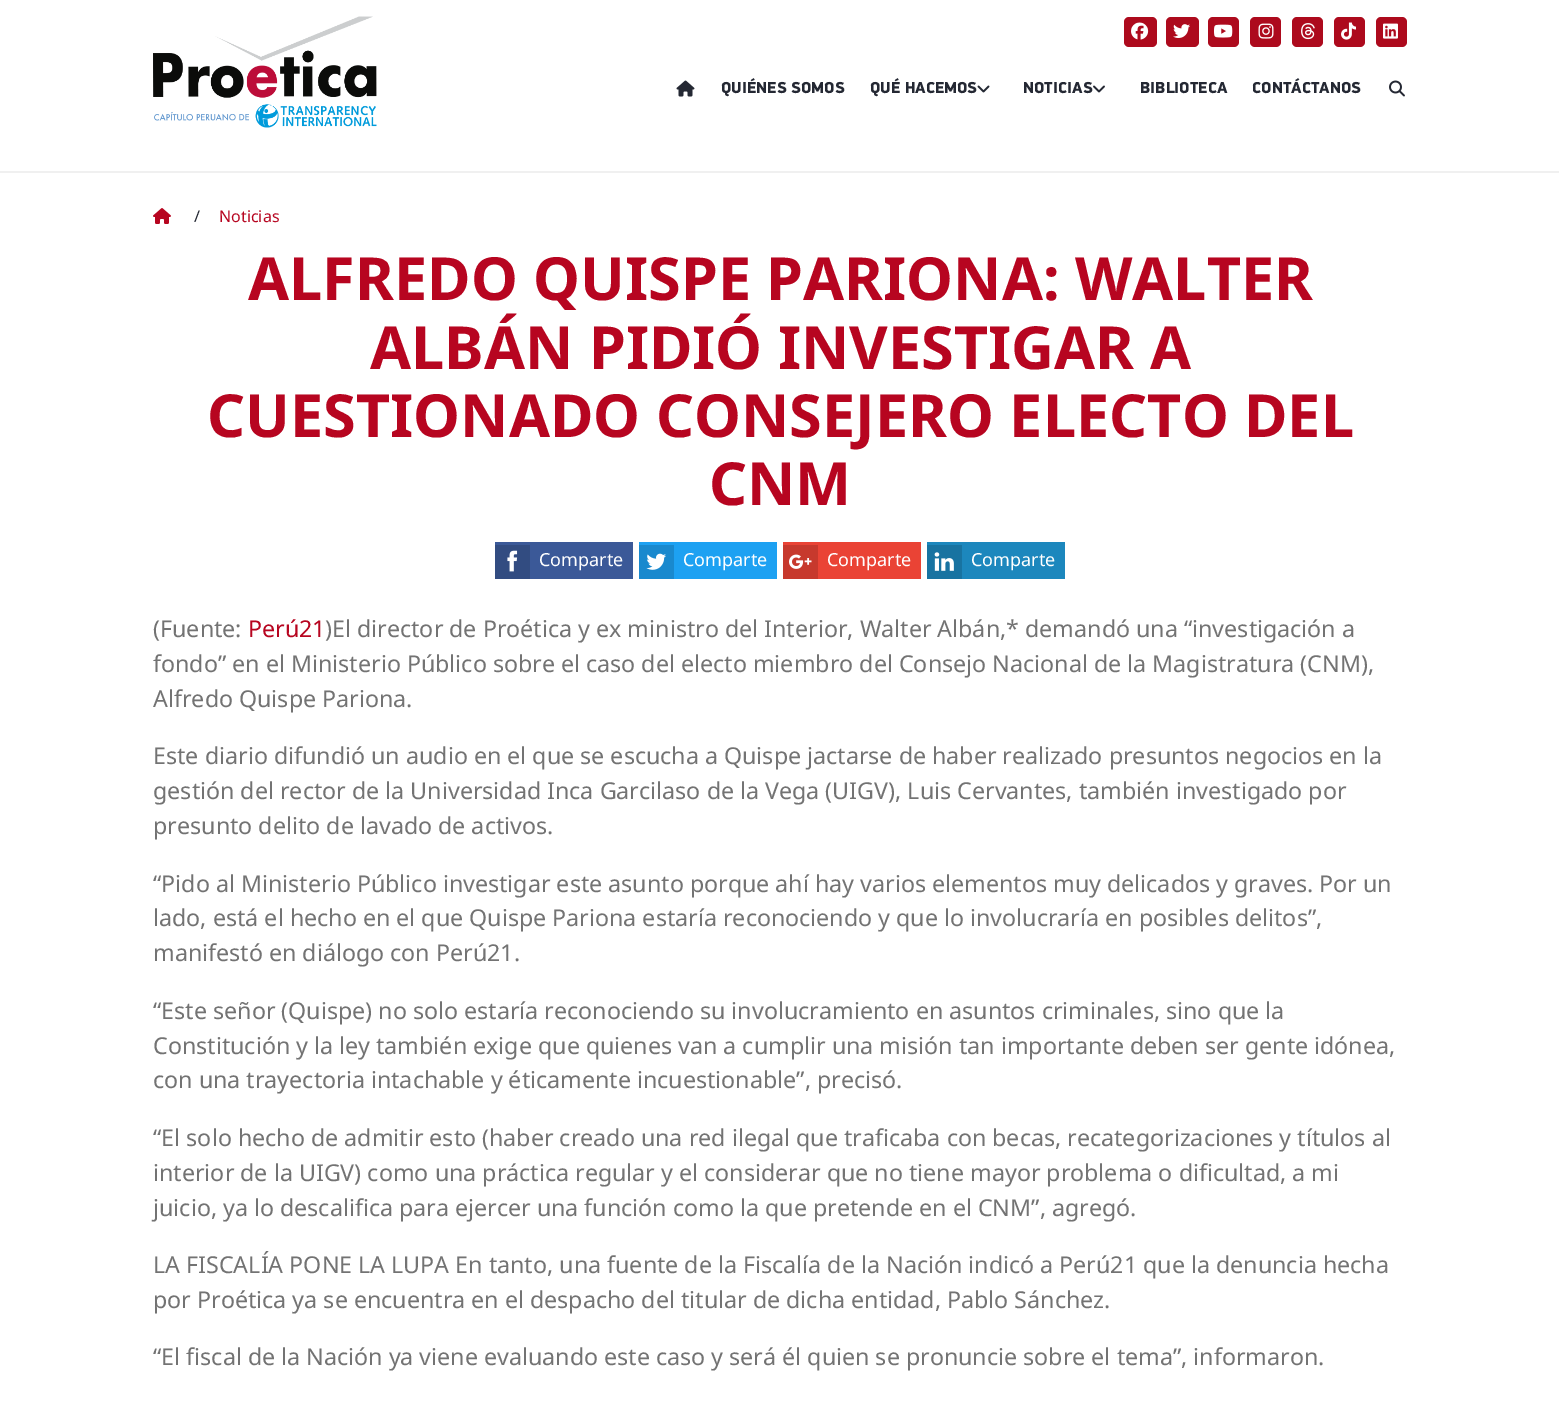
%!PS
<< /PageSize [1559 1403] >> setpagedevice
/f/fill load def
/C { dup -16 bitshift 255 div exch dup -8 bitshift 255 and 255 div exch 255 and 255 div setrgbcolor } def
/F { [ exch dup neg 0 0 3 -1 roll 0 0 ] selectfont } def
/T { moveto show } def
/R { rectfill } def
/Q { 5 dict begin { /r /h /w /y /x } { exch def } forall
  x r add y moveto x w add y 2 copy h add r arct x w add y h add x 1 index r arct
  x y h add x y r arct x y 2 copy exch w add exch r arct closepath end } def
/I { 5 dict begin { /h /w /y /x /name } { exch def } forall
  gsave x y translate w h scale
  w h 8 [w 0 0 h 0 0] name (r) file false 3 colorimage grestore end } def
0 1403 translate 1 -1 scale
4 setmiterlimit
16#FFFFFF C
0 0 1559 1403 R
16#F0F0F0 C
0 171 1559 2 R
(1.rgb) 153 16 224 112 I
16#AD0A1D C
1124 17 33 30 5 Q f
(2.rgb) 1131 22 18 18 I
1166 17 33 30 5 Q f
(3.rgb) 1173 24 17 14 I
1208 17 31 30 5 Q f
(4.rgb) 1214 24 19 14 I
1250 17 31 30 5 Q f
(5.rgb) 1258 23 16 16 I
1292 17 31 30 5 Q f
(6.rgb) 1301 23 14 17 I
1334 17 31 30 5 Q f
(7.rgb) 1341 22 15 18 I
1376 17 31 30 5 Q f
(8.rgb) 1383 23 15 16 I
(9.rgb) 676 80 19 17 I
/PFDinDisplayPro-Black 16 F
16#242833 C
(QUIÉNES SOMOS) 721 93 T
(QUÉ HACEMOS) 870 93 T
(10.rgb) 977 85 13 8 I
(NOTICIAS) 1023 93 T
(11.rgb) 1093 85 12 8 I
(BIBLIOTECA) 1140 93 T
(CONTÁCTANOS) 1252 93 T
(12.rgb) 1389 80 16 17 I
(13.rgb) 153 208 18 16 I
/NotoSans-Regular 16 F
(/) 194 222 T
16#B70520 C
(Noticias) 219 222 T
/NotoSans-Bold 59.4 F
(ALFREDO QUISPE PARIONA: WALTER) 248 300 T
(ALBÁN PIDIÓ INVESTIGAR A) 370 369 T
(CUESTIONADO CONSEJERO ELECTO DEL) 207 437 T
(CNM) 709 505 T
16#3B5998 C
495 542 138 37 R
16#324C81 C
495 545 35 34 R
(14.rgb) 507 550 11 22 I
/NotoSans-Regular 18 F
16#FFFFFF C
(Comparte) 539 566 T
16#1DA1F2 C
639 542 138 37 R
16#1989CE C
639 545 35 34 R
(15.rgb) 646 553 20 17 I
16#FFFFFF C
(Comparte) 683 566 T
16#EA4335 C
783 542 138 37 R
16#C7392D C
783 545 35 34 R
(16.rgb) 789 554 23 15 I
16#FFFFFF C
(Comparte) 827 566 T
16#1C87BD C
927 542 138 37 R
16#1873A1 C
927 545 35 34 R
(17.rgb) 934 552 20 19 I
16#FFFFFF C
(Comparte) 971 566 T
/NotoSans-Regular 23.25 F
16#737373 C
(\(Fuente:) 153 637 T
16#B70520 C
(Perú21) 248 637 T
16#737373 C
(\)El director de Proética y ex ministro del Interior, Walter Albán,* demandó una “investigación a) 325 637 T
(fondo” en el Ministerio Público sobre el caso del electo miembro del Consejo Nacional de la Magistratura \(CNM\),) 153 672 T
(Alfredo Quispe Pariona.) 153 707 T
(Este diario difundió un audio en el que se escucha a Quispe jactarse de haber realizado presuntos negocios en la) 153 764 T
(gestión del rector de la Universidad Inca Garcilaso de la Vega \(UIGV\), Luis Cervantes, también investigado por) 153 799 T
(presunto delito de lavado de activos.) 153 834 T
(“Pido al Ministerio Público investigar este asunto porque ahí hay varios elementos muy delicados y graves. Por un) 153 892 T
(lado, está el hecho en el que Quispe Pariona estaría reconociendo y que lo involucraría en posibles delitos”,) 153 926 T
(manifestó en diálogo con Perú21.) 153 961 T
(“Este señor \(Quispe\) no solo estaría reconociendo su involucramiento en asuntos criminales, sino que la) 153 1019 T
(Constitución y la ley también exige que quienes van a cumplir una misión tan importante deben ser gente idónea,) 153 1054 T
(con una trayectoria intachable y éticamente incuestionable”, precisó.) 153 1088 T
(“El solo hecho de admitir esto \(haber creado una red ilegal que traficaba con becas, recategorizaciones y títulos al) 153 1146 T
(interior de la UIGV\) como una práctica regular y el considerar que no tiene mayor problema o dificultad, a mi) 153 1181 T
(juicio, ya lo descalifica para ejercer una función como la que pretende en el CNM”, agregó.) 153 1216 T
(LA FISCALÍA PONE LA LUPA En tanto, una fuente de la Fiscalía de la Nación indicó a Perú21 que la denuncia hecha) 153 1273 T
(por Proética ya se encuentra en el despacho del titular de dicha entidad, Pablo Sánchez.) 153 1308 T
(“El fiscal de la Nación ya viene evaluando este caso y será él quien se pronuncie sobre el tema”, informaron.) 153 1365 T
showpage
